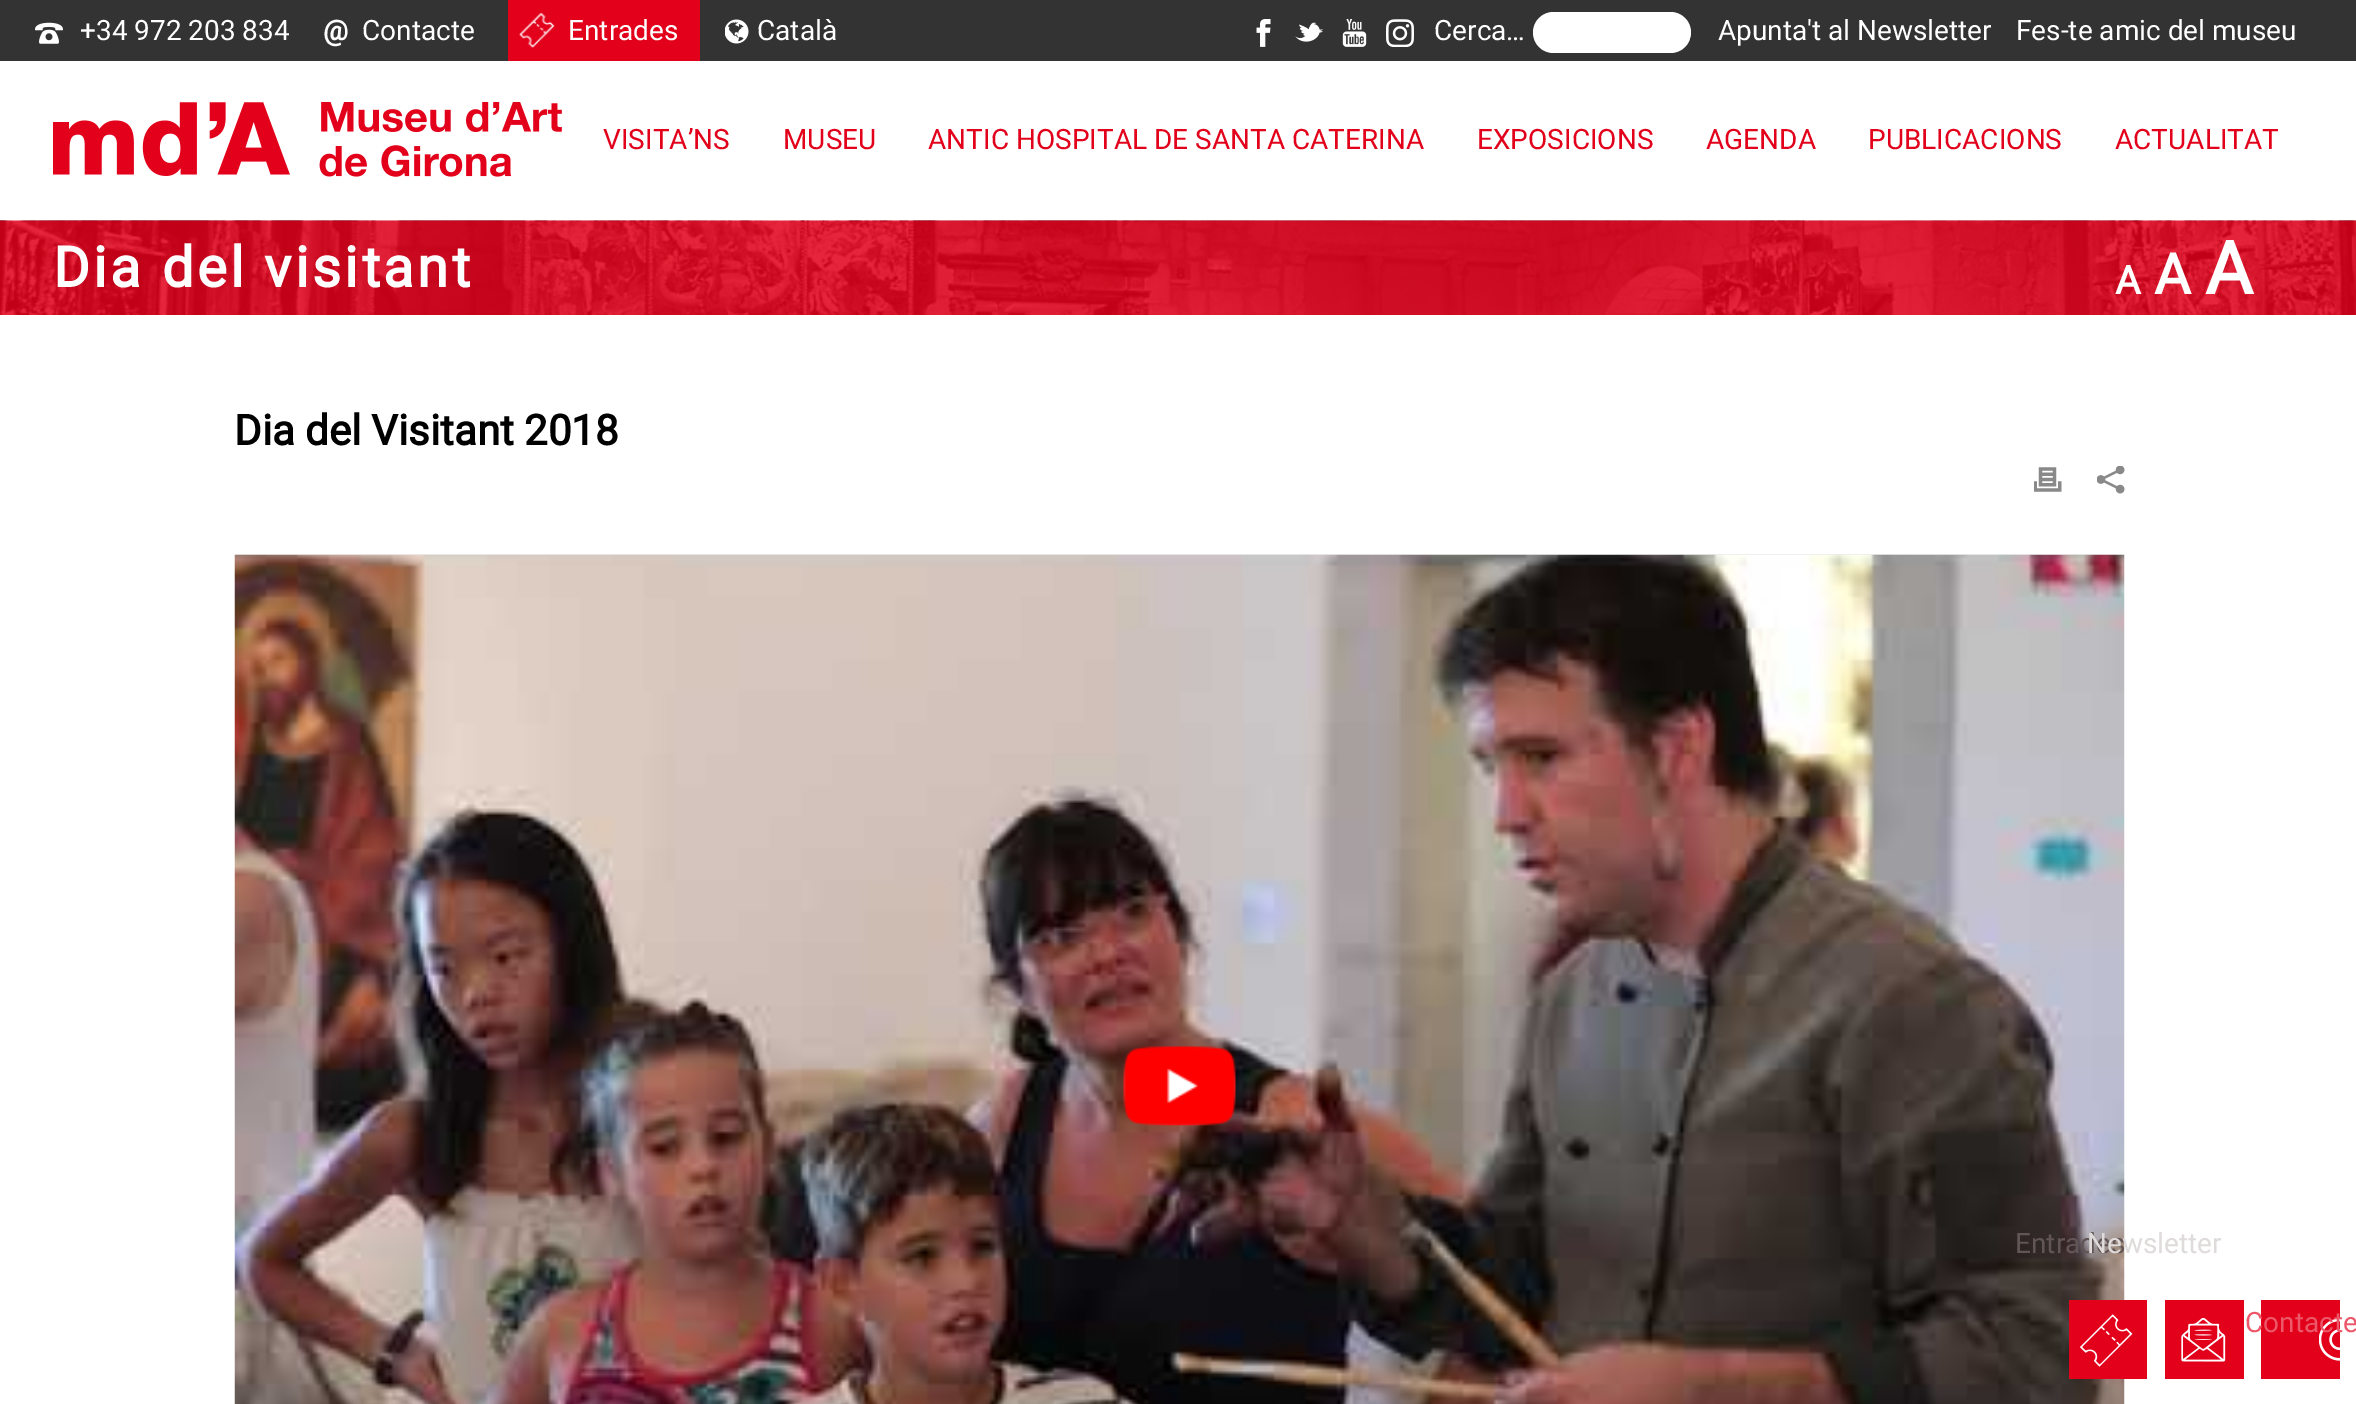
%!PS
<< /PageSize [2356 1404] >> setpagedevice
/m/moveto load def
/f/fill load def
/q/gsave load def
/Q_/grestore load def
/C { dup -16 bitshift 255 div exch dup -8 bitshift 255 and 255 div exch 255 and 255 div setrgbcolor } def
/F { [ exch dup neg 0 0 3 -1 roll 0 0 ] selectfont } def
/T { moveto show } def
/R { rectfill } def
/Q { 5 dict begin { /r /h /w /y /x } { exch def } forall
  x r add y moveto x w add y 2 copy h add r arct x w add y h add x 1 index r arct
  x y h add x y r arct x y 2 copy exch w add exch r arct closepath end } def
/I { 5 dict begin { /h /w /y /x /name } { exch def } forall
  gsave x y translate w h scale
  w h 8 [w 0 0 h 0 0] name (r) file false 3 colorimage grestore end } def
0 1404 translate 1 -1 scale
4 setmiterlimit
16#FFFFFF C
0 0 2356 1404 R
16#333333 C
0 0 2356 61 R
(1.rgb) 35 22 28 22 I
/Roboto-Regular 28 F
16#FFFFFF C
(+34 972 203 834) 80 40 T
/Roboto-Bold 28 F
(@) 323 40 T
/Roboto-Regular 28 F
(Contacte) 362 40 T
16#E2001A C
508 0 192 61 R
(2.rgb) 519 12 36 36 I
16#FFFFFF C
(Entrades) 568 40 T
(3.rgb) 725 19 24 25 I
(Català) 757 40 T
(4.rgb) 1256 19 15 28 I
(5.rgb) 1295 22 28 20 I
(6.rgb) 1342 19 25 28 I
(7.rgb) 1386 19 28 28 I
(Cerca…) 1434 40 T
q
1433 0 258 61 30.5 Q clip newpath
1533 12 158 41 20.5 Q f
Q_
(Apunta't al Newsletter) 1718 40 T
(Fes-te amic del museu) 2016 40 T
(8.rgb) 53 102 509 75 I
16#E2001A C
(VISITA’NS) 603 149 T
(MUSEU) 783 149 T
(ANTIC HOSPITAL DE SANTA CATERINA) 928 149 T
(EXPOSICIONS) 1477 149 T
(AGENDA) 1706 149 T
(PUBLICACIONS) 1868 149 T
(ACTUALITAT) 2115 149 T
(9.rgb) 0 220 2356 95 I
/Roboto-Bold 56 F
16#FFFFFF C
53 287 m 3.5 0 (Dia del visitant) ashow
/Roboto-Bold 42 F
16#000000 C
(Dia del Visitant 2018) 234 445 T
(10.rgb) 2034 467 28 25 I
(11.rgb) 2097 466 28 28 I
(12.rgb) 234 554 1891 850 I
(13.rgb) 1123 1046 113 80 I
/Roboto-Bold 39 F
16#FFFFFF C
(A) 2115 294 T
/Roboto-Bold 56 F
(A) 2154 294 T
/Roboto-Bold 73 F
(A) 2205 294 T
/Roboto-Regular 28 F
16#615655 C
(Entrades) 2015 1253 T
16#E2001A C
2069 1300 78 79 R
(14.rgb) 2079 1314 54 53 I
16#DEDBDA C
(Newsletter) 2087 1253 T
16#E2001A C
2165 1300 79 79 R
(15.rgb) 2181 1318 45 44 I
2261 1300 79 79 R
(16.rgb) 2319 1318 21 43 I
16#EC5869 C
(Contacte) 2245 1332 T
showpage
